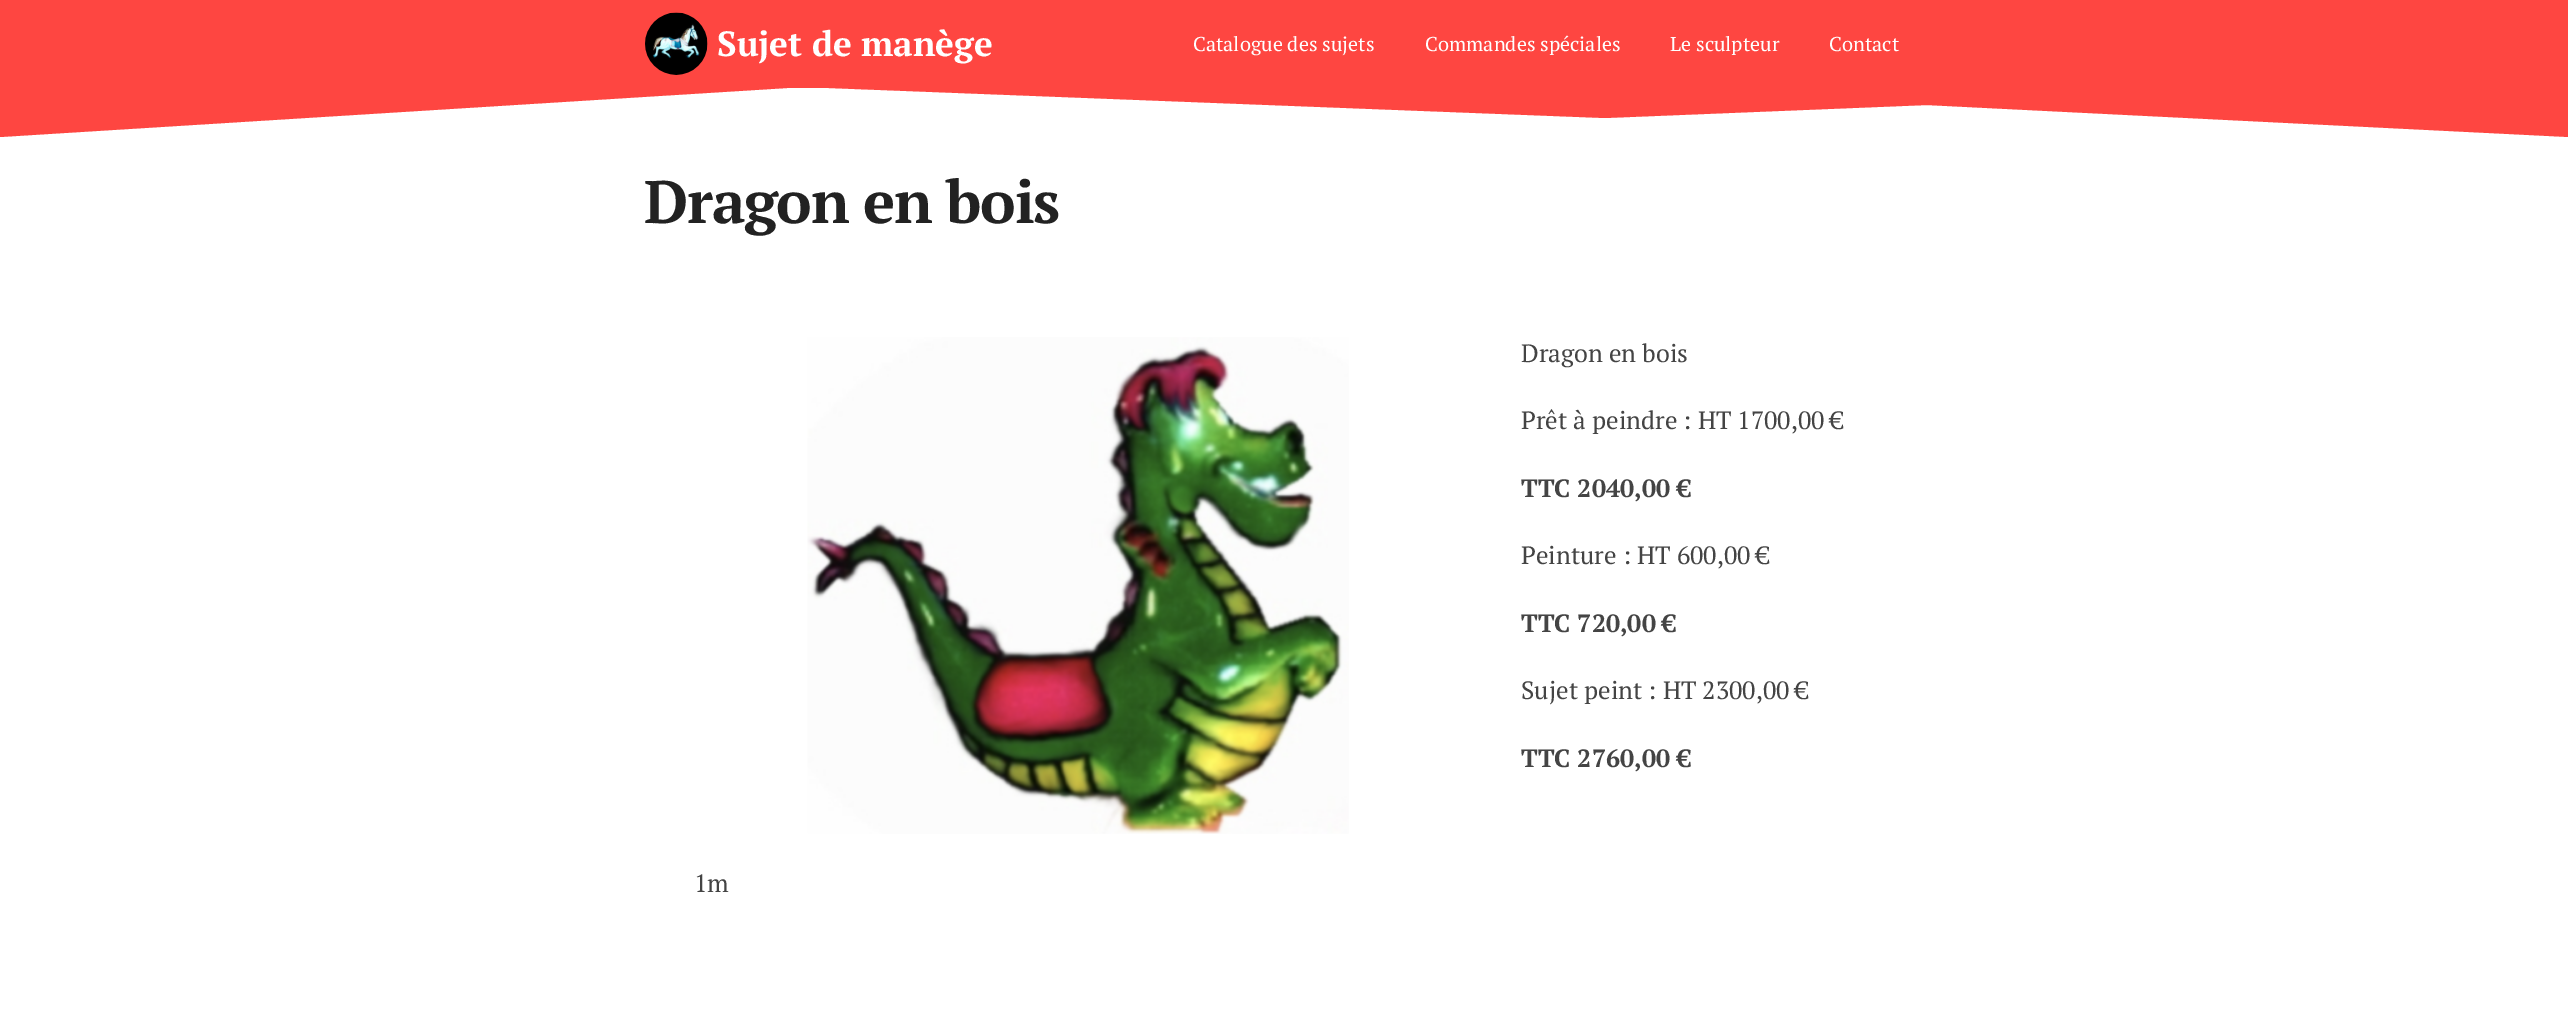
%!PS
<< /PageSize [2568 1014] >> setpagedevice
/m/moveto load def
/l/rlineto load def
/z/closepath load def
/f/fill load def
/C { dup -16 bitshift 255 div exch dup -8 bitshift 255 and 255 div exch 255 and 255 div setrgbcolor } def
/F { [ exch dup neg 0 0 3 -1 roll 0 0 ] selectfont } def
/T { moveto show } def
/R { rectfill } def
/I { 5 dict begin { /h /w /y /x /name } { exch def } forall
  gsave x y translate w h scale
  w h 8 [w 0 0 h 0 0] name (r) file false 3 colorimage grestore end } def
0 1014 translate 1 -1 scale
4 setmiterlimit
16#FFFFFF C
0 0 2568 1014 R
16#FE4641 C
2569 86 m -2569 0 l 0 51 l 803 -50 l 802 31 l 322 -13 l 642 32 l z f
0 0 2568 88 R
(1.rgb) 645 12 63 63 I
/PTSerif-Bold 35 F
16#FFFFFF C
(Sujet de manège) 717 56 T
/PTSerif-Regular 20 F
(Catalogue des sujets) 1193 51 T
(Commandes spéciales) 1425 51 T
(Le sculpteur) 1670 51 T
(Contact) 1829 51 T
/PTSerif-Bold 60 F
16#222222 C
644 223 m -1.25 0 (Dragon en bois) ashow
(2.rgb) 807 337 542 497 I
/PTSerif-Regular 25 F
16#444444 C
(Dragon en bois) 1521 362 T
(Prêt à peindre : HT 1700,00 €) 1521 429 T
/PTSerif-Bold 25 F
(TTC 2040,00 €) 1521 497 T
/PTSerif-Regular 25 F
(Peinture : HT 600,00 €) 1521 564 T
/PTSerif-Bold 25 F
(TTC 720,00 €) 1521 632 T
/PTSerif-Regular 25 F
(Sujet peint : HT 2300,00 €) 1521 699 T
/PTSerif-Bold 25 F
(TTC 2760,00 €) 1521 767 T
/PTSerif-Regular 25 F
(1m) 694 892 T
showpage
